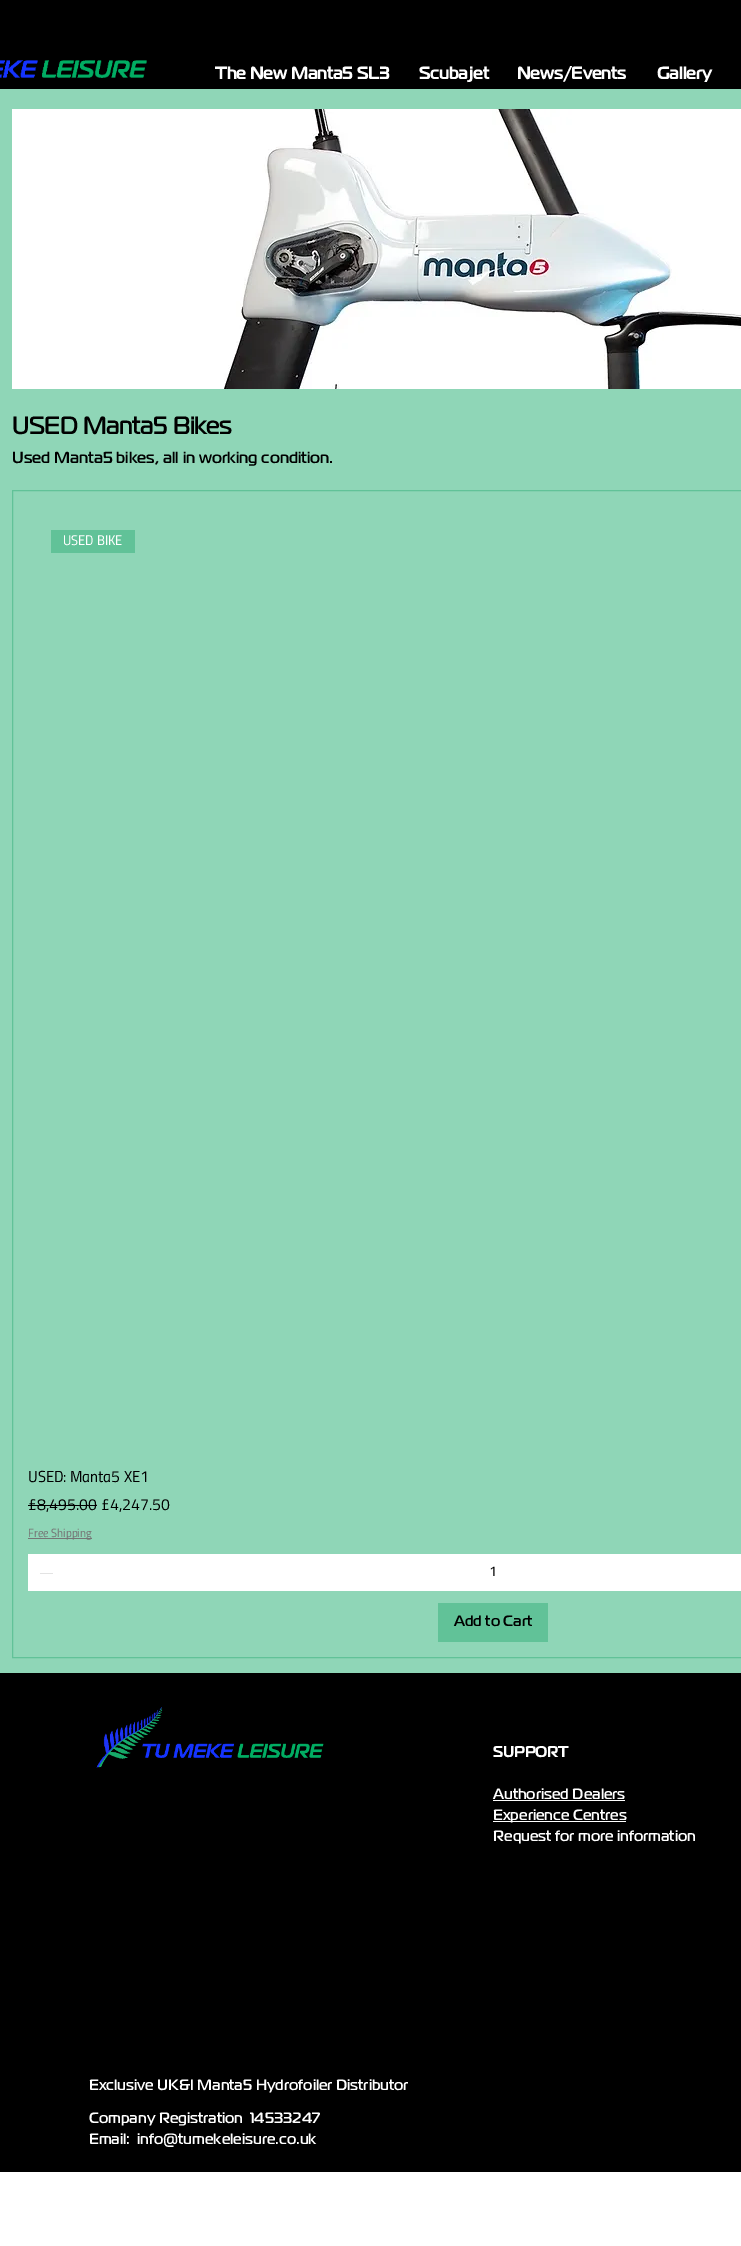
%!PS
<< /PageSize [741 2246] >> setpagedevice
/C { dup -16 bitshift 255 div exch dup -8 bitshift 255 and 255 div exch 255 and 255 div setrgbcolor } def
/F { [ exch dup neg 0 0 3 -1 roll 0 0 ] selectfont } def
/T { moveto show } def
/R { rectfill } def
/I { 5 dict begin { /h /w /y /x /name } { exch def } forall
  gsave x y translate w h scale
  w h 8 [w 0 0 h 0 0] name (r) file false 3 colorimage grestore end } def
0 2246 translate 1 -1 scale
4 setmiterlimit
16#FFFFFF C
0 0 741 2246 R
16#000000 C
0 0 741 89 R
(1.rgb) 0 60 147 18 I
/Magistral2-Bold 17 F
16#FFFFFF C
(The New Manta5 SL3) 215 79 T
(Scubajet) 419 79 T
(News/Events) 517 79 T
(Gallery) 657 79 T
16#8FD6B7 C
0 89 741 1584 R
(2.rgb) 12 109 729 280 I
/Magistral-Bold 24 F
16#000000 C
(USED Manta5 Bikes) 12 434 T
/Magistral-Medium 16 F
(Used Manta5 bikes, all in working condition.) 12 463 T
16#61C298 C
12.5 490.5 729 1167 rectstroke
51 530 84 23 R
/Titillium-Regular 14 F
16#FFFFFF C
(USED BIKE) 63 545 T
/Titillium-Regular 16 F
16#000000 C
(USED: Manta5 XE1) 28 1482 T
(£8,495.00) 28 1510 T
28 1505 69 1 R
(£4,247.50) 101 1510 T
16#757575 C
28 1538 64 1 R
/Titillium-Regular 12 F
(Free Shipping) 28 1537 T
16#FFFFFF C
28 1554 713 37 R
16#E3E3E3 C
40 1573 13 1 R
/Titillium-Regular 14 F
16#000000 C
(1) 489 1576 T
16#61C298 C
438 1603 110 39 R
/Magistral-Medium 15 F
16#000000 C
(Add to Cart) 454 1626 T
0 1673 741 499 R
(3.rgb) 96 1707 228 61 I
/Magistral2-Bold 15 F
16#FFFFFF C
(SUPPORT) 493 1757 T
/Magistral-Medium 15 F
(Authorised Dealers) 493 1799 T
493 1800 132 1 R
493 1821 133 1 R
(Experience Centres) 493 1820 T
(Request for more information) 493 1841 T
(Exclusive UK&I Manta5 Hydrofoiler Distributor) 89 2090 T
(Company Registration  14533247) 89 2123 T
(Email:) 89 2144 T
(info@tumekeleisure.co.uk) 137 2144 T
showpage
